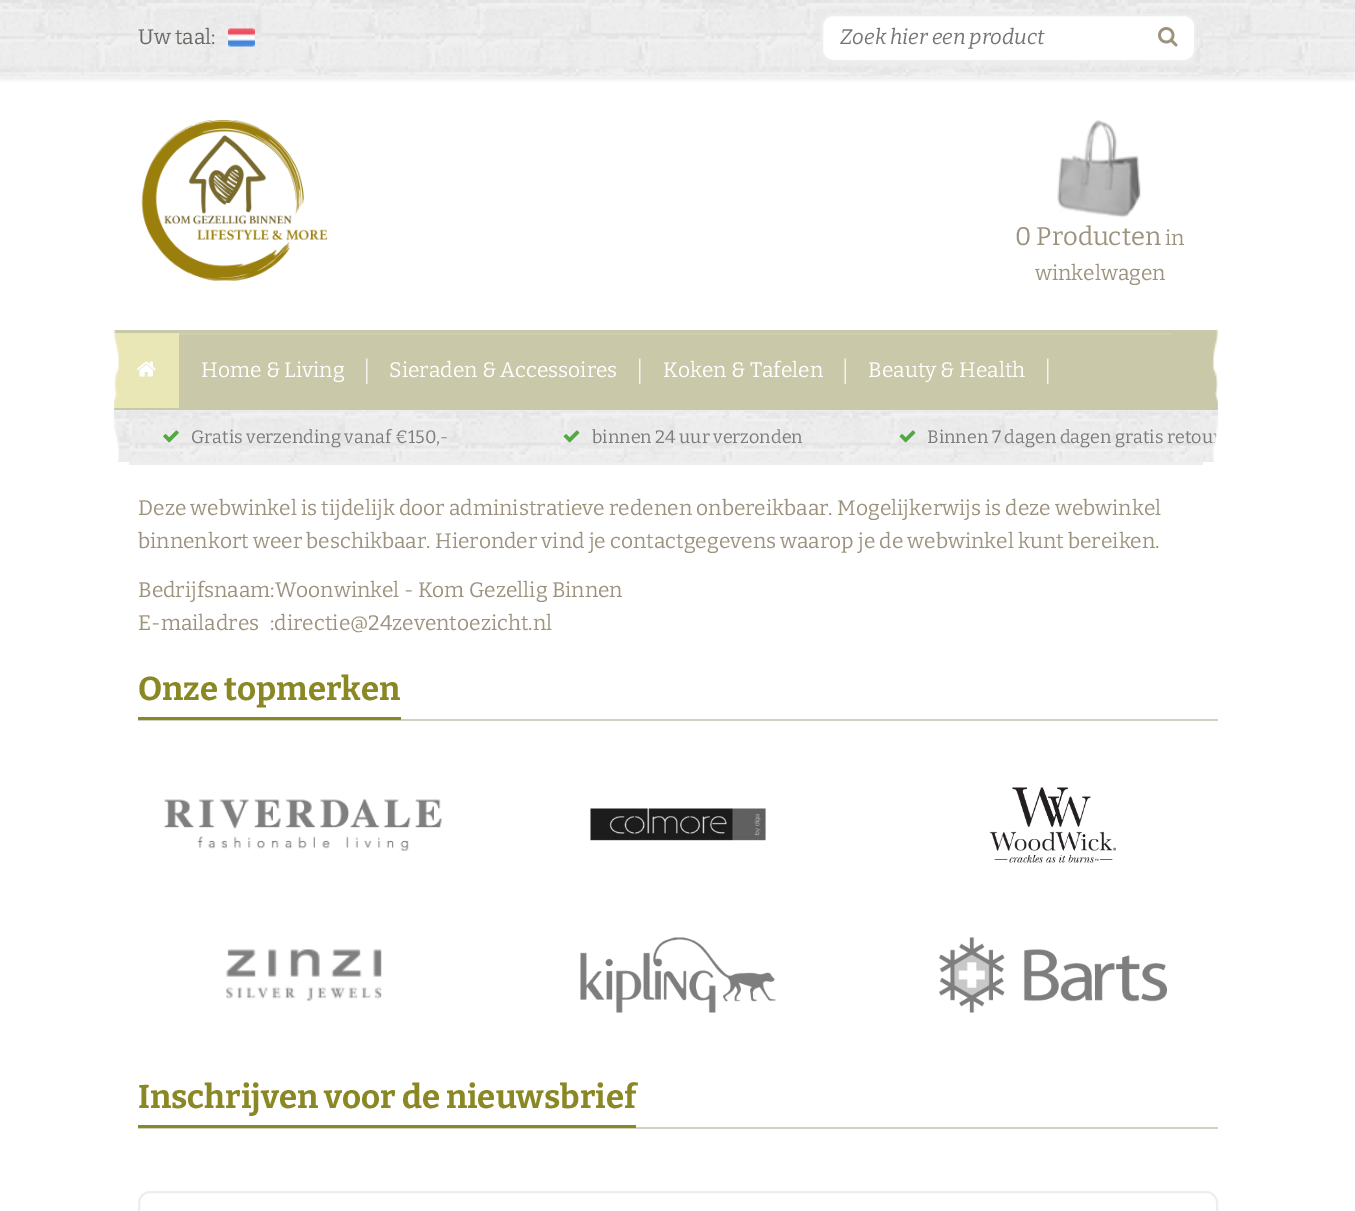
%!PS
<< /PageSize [1355 1211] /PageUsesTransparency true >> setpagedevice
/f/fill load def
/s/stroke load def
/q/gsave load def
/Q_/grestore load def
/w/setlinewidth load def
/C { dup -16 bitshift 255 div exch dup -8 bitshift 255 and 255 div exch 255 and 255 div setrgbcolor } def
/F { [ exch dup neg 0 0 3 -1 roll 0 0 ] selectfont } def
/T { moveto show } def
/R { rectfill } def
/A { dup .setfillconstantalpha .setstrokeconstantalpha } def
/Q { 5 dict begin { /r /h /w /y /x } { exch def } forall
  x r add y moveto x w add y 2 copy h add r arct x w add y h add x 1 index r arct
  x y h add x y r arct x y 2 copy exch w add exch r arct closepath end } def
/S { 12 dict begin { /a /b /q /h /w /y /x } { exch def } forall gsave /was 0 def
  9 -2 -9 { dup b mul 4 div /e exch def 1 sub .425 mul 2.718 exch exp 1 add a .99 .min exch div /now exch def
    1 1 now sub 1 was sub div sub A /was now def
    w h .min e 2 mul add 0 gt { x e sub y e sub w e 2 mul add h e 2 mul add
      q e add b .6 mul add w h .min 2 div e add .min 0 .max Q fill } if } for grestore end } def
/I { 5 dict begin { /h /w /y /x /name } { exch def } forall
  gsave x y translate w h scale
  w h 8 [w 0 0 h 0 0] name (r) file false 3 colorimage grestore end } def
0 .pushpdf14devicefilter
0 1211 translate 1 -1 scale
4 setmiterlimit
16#FFFFFF C
0 0 1355 1211 R
16#EEEEEE C
0 3 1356 77 0 1.5 1 S
(1.rgb) 0 0 1355 77 I
/Bitter-Regular 21 F
16#686A66 C
(Uw taal:) 138 44 T
(2.rgb) 228 28 27 19 I
16#FFFFFF C
822 15 373 46 11 Q q f Q_
16#EEEEEE C
2 w
s
/Bitter-Italic 21 F
16#757575 C
(Zoek hier een product) 840 44 T
(3.rgb) 1158 27 20 20 I
(4.rgb) 141 120 187 161 I
(5.rgb) 1057 120 84 98 I
/Bitter-Regular 25.5 F
16#9D927E C
(0 Producten) 1015 245 T
/Bitter-Regular 21 F
(in) 1165 245 T
(winkelwagen) 1035 280 T
(11.rgb) 113 409 1106 53 I
16#EEEEEE C
114 332 1104 79 0 1 1 S
16#C9C8A9 C
114 330 1104 80 R
16#E9E7B5 C
114 333 65 75 R
(6.rgb) 84 330 36 132 I
16#CECEB2 C
179 333 993 2 R
(7.rgb) 136 361 20 16 I
16#FFFFFF C
(Home & Living) 201 377 T
(8.rgb) 366 358 2 26 I
(Sieraden & Accessoires) 389 377 T
(8.rgb) 639 358 2 26 I
(Koken & Tafelen) 663 377 T
(9.rgb) 844 358 2 26 I
(Beauty & Health) 868 377 T
(8.rgb) 1047 358 2 26 I
/Bitter-Regular 18 F
16#7C7C7C C
(Binnen 7 dagen dagen gratis retou) 927 443 T
(10.rgb) 1212 330 36 132 I
16#EEEEEE C
129 462 1074 3 R
(12.rgb) 163 430 16 13 I
16#7C7C7C C
(Gratis verzending vanaf €150,-) 191 443 T
(13.rgb) 563 430 17 13 I
(binnen 24 uur verzonden) 592 443 T
(14.rgb) 899 430 17 13 I
/Bitter-Regular 21 F
16#9D927E C
(Deze webwinkel is tijdelijk door administratieve redenen onbereikbaar. Mogelijkerwijs is deze webwinkel) 138 515 T
(binnenkort weer beschikbaar. Hieronder vind je contactgegevens waarop je de webwinkel kunt bereiken.) 138 548 T
(Bedrijfsnaam:Woonwinkel - Kom Gezellig Binnen) 138 597 T
(E-mailadres) 138 630 T
(:directie@24zeventoezicht.nl) 270 630 T
16#CFD0C0 C
138 719 1080 2 R
16#8A8725 C
138 717 263 3 R
/Bitter-Bold 33 F
(Onze topmerken) 138 700 T
(15.rgb) 164 799 278 52 I
(16.rgb) 590 808 176 33 I
(17.rgb) 990 787 126 76 I
(18.rgb) 226 949 156 52 I
(19.rgb) 580 937 196 76 I
(20.rgb) 939 937 228 76 I
16#CFD0C0 C
138 1127 1080 2 R
16#8A8725 C
138 1125 498 3 R
(Inschrijven voor de nieuwsbrief) 138 1108 T
16#EEEEEE C
139 1192 1078 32 11 Q s
.poppdf14devicefilter showpage
